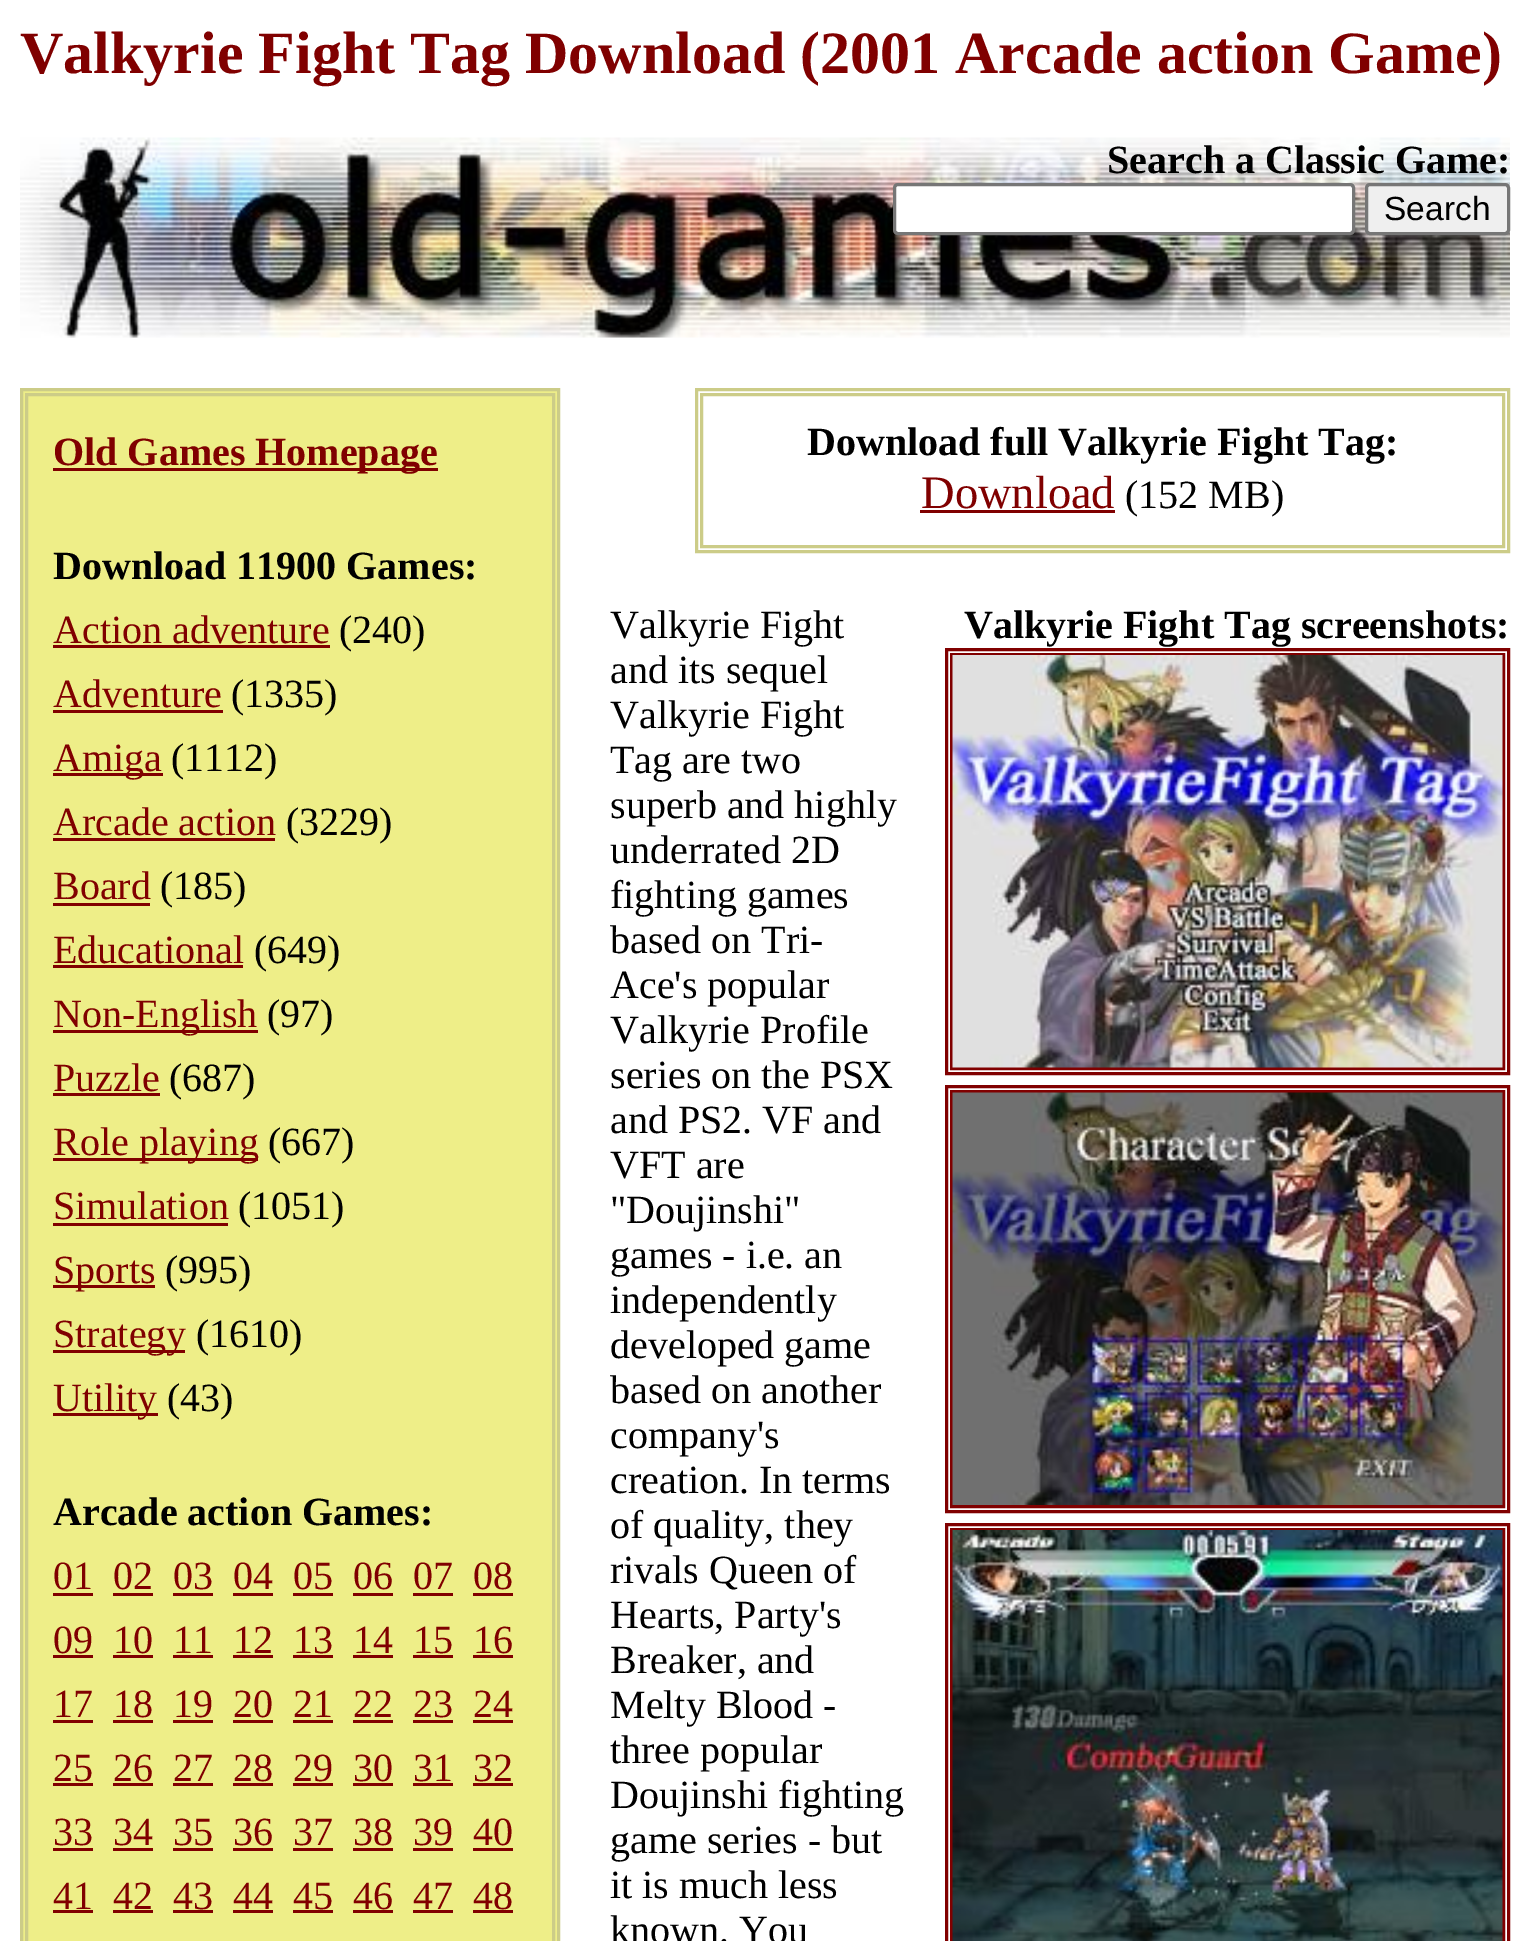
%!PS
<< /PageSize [1529 1941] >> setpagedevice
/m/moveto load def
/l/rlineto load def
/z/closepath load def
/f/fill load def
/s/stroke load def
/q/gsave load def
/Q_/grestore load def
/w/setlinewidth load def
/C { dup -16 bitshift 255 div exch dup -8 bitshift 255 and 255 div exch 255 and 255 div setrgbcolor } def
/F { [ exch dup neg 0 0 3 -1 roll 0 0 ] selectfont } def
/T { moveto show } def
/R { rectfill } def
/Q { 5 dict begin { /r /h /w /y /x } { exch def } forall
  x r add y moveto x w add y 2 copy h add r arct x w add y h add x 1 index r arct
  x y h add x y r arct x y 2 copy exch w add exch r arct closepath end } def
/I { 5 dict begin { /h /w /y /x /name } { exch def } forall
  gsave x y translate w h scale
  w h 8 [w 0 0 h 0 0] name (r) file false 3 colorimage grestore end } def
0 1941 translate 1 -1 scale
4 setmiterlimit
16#FFFFFF C
0 0 1529 1941 R
/LiberationSerif-Bold 60 F
16#800000 C
(Valkyrie Fight Tag Download \(2001 Arcade action Game\)) 20 73 T
(1.rgb) 20 137 1490 201 I
/LiberationSerif-Bold 40 F
16#000000 C
(Search a Classic Game:) 1107 173 T
16#FFFFFF C
894.5 184.5 459 49 3.5 Q q f Q_
16#767676 C
3 w
s
16#EFEFEF C
1366.5 184.5 142 49 3.5 Q q f Q_
16#767676 C
s
/LiberationSans-Regular 33.5 F
16#000000 C
(Search) 1384 220 T
16#EEEE88 C
21.5 389.5 m 537 0 l 0 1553 l -537 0 l z q f Q_
16#CCCC88 C
s
26.5 394.5 527 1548 rectstroke
16#800000 C
53 468 385 3 R
/LiberationSerif-Bold 40 F
(Old Games Homepage) 53 465 T
16#000000 C
(Download 11900 Games:) 53 579 T
/LiberationSerif-Regular 40 F
16#800000 C
(Action adventure) 53 643 T
53 645 277 3 R
16#000000 C
(\(240\)) 339 643 T
16#800000 C
(Adventure) 53 707 T
53 710 170 3 R
16#000000 C
(\(1335\)) 231 707 T
16#800000 C
53 773 110 3 R
(Amiga) 53 771 T
16#000000 C
(\(1112\)) 171 771 T
16#800000 C
(Arcade action) 53 835 T
53 838 222 3 R
16#000000 C
(\(3229\)) 286 835 T
16#800000 C
(Board) 53 899 T
53 903 97 3 R
16#000000 C
(\(185\)) 160 899 T
16#800000 C
(Educational) 53 963 T
53 965 190 3 R
16#000000 C
(\(649\)) 254 963 T
16#800000 C
53 1030 205 3 R
(Non-English) 53 1027 T
16#000000 C
(\(97\)) 267 1027 T
16#800000 C
(Puzzle) 53 1091 T
53 1093 107 3 R
16#000000 C
(\(687\)) 169 1091 T
16#800000 C
53 1158 205 3 R
(Role playing) 53 1155 T
16#000000 C
(\(667\)) 268 1155 T
16#800000 C
(Simulation) 53 1219 T
53 1223 175 3 R
16#000000 C
(\(1051\)) 238 1219 T
16#800000 C
53 1285 102 3 R
(Sports) 53 1283 T
16#000000 C
(\(995\)) 165 1283 T
16#800000 C
53 1350 132 3 R
(Strategy) 53 1347 T
16#000000 C
(\(1610\)) 196 1347 T
16#800000 C
53 1413 105 3 R
(Utility) 53 1411 T
16#000000 C
(\(43\)) 167 1411 T
/LiberationSerif-Bold 40 F
(Arcade action Games:) 53 1525 T
/LiberationSerif-Regular 40 F
16#800000 C
(01) 53 1589 T
53 1593 40 3 R
(02) 113 1589 T
113 1593 40 3 R
(03) 173 1589 T
173 1593 40 3 R
(04) 233 1589 T
233 1593 40 3 R
(05) 293 1589 T
293 1593 40 3 R
(06) 353 1589 T
353 1593 40 3 R
(07) 413 1589 T
413 1593 40 3 R
(08) 473 1589 T
473 1593 40 3 R
(09) 53 1653 T
53 1655 40 3 R
(10) 113 1653 T
113 1655 40 3 R
(11) 173 1653 T
173 1655 40 3 R
(12) 233 1653 T
233 1655 40 3 R
(13) 293 1653 T
293 1655 40 3 R
(14) 353 1653 T
353 1655 40 3 R
(15) 413 1653 T
413 1655 40 3 R
(16) 473 1653 T
473 1655 40 3 R
(17) 53 1717 T
53 1720 40 3 R
(18) 113 1717 T
113 1720 40 3 R
(19) 173 1717 T
173 1720 40 3 R
(20) 233 1717 T
233 1720 40 3 R
(21) 293 1717 T
293 1720 40 3 R
(22) 353 1717 T
353 1720 40 3 R
(23) 413 1717 T
413 1720 40 3 R
(24) 473 1717 T
473 1720 40 3 R
(25) 53 1781 T
53 1783 40 3 R
(26) 113 1781 T
113 1783 40 3 R
(27) 173 1781 T
173 1783 40 3 R
(28) 233 1781 T
233 1783 40 3 R
(29) 293 1781 T
293 1783 40 3 R
(30) 353 1781 T
353 1783 40 3 R
(31) 413 1781 T
413 1783 40 3 R
(32) 473 1781 T
473 1783 40 3 R
(33) 53 1845 T
53 1848 40 3 R
(34) 113 1845 T
113 1848 40 3 R
(35) 173 1845 T
173 1848 40 3 R
(36) 233 1845 T
233 1848 40 3 R
(37) 293 1845 T
293 1848 40 3 R
(38) 353 1845 T
353 1848 40 3 R
(39) 413 1845 T
413 1848 40 3 R
(40) 473 1845 T
473 1848 40 3 R
(41) 53 1909 T
53 1910 40 3 R
(42) 113 1909 T
113 1910 40 3 R
(43) 173 1909 T
173 1910 40 3 R
(44) 233 1909 T
233 1910 40 3 R
(45) 293 1909 T
293 1910 40 3 R
(46) 353 1909 T
353 1910 40 3 R
(47) 413 1909 T
413 1910 40 3 R
(48) 473 1909 T
473 1910 40 3 R
16#000000 C
(Valkyrie Fight) 610 638 T
(and its sequel) 610 683 T
(Valkyrie Fight) 610 728 T
(Tag are two) 610 773 T
(superb and highly) 610 818 T
(underrated 2D) 610 863 T
(fighting games) 610 908 T
(based on Tri-) 610 953 T
(Ace's popular) 610 998 T
(Valkyrie Profile) 610 1043 T
(series on the PSX) 610 1088 T
(and PS2. VF and) 610 1133 T
(VFT are) 610 1178 T
("Doujinshi") 610 1223 T
(games - i.e. an) 610 1268 T
(independently) 610 1313 T
(developed game) 610 1358 T
(based on another) 610 1403 T
(company's) 610 1448 T
(creation. In terms) 610 1493 T
(of quality, they) 610 1538 T
(rivals Queen of) 610 1583 T
(Hearts, Party's) 610 1628 T
(Breaker, and) 610 1673 T
(Melty Blood -) 610 1718 T
(three popular) 610 1763 T
(Doujinshi fighting) 610 1808 T
(game series - but) 610 1853 T
(it is much less) 610 1898 T
(known. You) 610 1943 T
16#CCCC88 C
696.5 389.5 812 162 rectstroke
701.5 394.5 802 152 rectstroke
/LiberationSerif-Bold 40 F
16#000000 C
(Download full Valkyrie Fight Tag:) 807 455 T
/LiberationSerif-Regular 46.5 F
16#800000 C
(Download) 921 508 T
920 510 195 3 R
/LiberationSerif-Regular 40 F
16#000000 C
(\(152 MB\)) 1125 508 T
/LiberationSerif-Bold 40 F
(Valkyrie Fight Tag screenshots:) 964 638 T
16#800000 C
946.5 649.5 562 424 rectstroke
951.5 654.5 552 414 rectstroke
(2.rgb) 952 655 551 413 I
946.5 1086.5 562 425 rectstroke
951.5 1091.5 552 415 rectstroke
(3.rgb) 952 1092 551 413 I
946.5 1524.5 562 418 rectstroke
951.5 1529.5 552 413 rectstroke
(4.rgb) 952 1530 551 411 I
showpage
